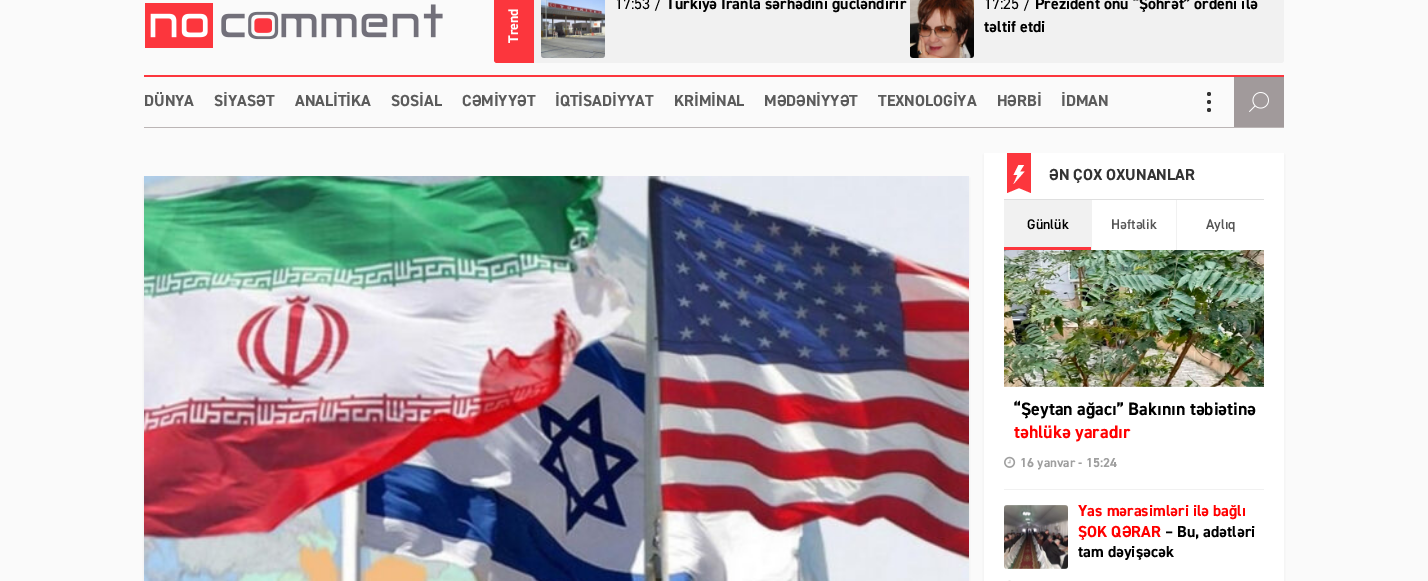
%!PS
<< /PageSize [1428 581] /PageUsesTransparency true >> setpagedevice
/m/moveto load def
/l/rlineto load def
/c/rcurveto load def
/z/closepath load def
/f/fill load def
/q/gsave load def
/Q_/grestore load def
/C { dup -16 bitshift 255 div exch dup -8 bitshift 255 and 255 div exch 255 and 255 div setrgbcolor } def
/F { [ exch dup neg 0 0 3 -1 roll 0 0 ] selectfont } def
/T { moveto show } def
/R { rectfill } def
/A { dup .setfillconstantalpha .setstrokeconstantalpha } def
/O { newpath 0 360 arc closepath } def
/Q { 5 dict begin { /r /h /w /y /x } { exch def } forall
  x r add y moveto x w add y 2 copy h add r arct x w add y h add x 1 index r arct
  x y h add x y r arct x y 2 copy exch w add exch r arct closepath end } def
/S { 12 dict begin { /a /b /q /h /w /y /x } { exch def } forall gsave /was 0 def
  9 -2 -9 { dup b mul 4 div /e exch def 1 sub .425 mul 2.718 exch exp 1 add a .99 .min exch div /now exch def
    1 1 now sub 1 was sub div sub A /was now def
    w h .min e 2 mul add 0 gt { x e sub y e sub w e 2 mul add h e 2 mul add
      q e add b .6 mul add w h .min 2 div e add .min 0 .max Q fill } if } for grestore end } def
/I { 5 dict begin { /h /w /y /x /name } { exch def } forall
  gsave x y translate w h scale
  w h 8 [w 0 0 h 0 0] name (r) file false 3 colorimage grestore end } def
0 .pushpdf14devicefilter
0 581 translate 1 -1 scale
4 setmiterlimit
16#FAFAFA C
0 0 1428 581 R
16#FC363D C
144 75 1140 2 R
(1.rgb) 145 3 298 45 I
16#F1F1F1 C
494 -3 790 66 3 Q f
16#FC363D C
497 -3 m 37 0 l 0 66 l -37 0 l -1.5 0 -3 -1.5 -3 -3 c 0 -60 l 0 -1.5 1.5 -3 3 -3 c z f
/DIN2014-Bold 14 F
16#FFFFFF C
q 518 43 translate -90 rotate 0 0 m (Trend) show Q_
(2.rgb) 541 0 64 58 I
/DIN2014-Regular 16 F
16#000000 C
(17:53 /) 615 9 T
/DIN2014-Bold 16 F
(Türkiyə İranla sərhədini gücləndirir) 666 9 T
(3.rgb) 910 0 64 58 I
/DIN2014-Regular 16 F
(17:25 /) 984 9 T
/DIN2014-Bold 16 F
(Prezident onu “Şöhrət” ordeni ilə) 1035 9 T
(təltif etdi) 984 32 T
16#BBB5B5 C
144 127 1140 1 R
16#5B5B5B C
(DÜNYA) 144 106 T
(SİYASƏT) 214 106 T
(ANALİTİKA) 295 106 T
(SOSİAL) 391 106 T
(CƏMİYYƏT) 462 106 T
(İQTİSADİYYAT) 555 106 T
(KRİMİNAL) 674 106 T
(MƏDƏNİYYƏT) 764 106 T
(TEXNOLOGİYA) 878 106 T
(HƏRBİ) 997 106 T
(İDMAN) 1061 106 T
16#333333 C
1209 94 2 O f
1209 102 2 O f
1209 110 2 O f
16#A19A9B C
1234 77 50 50 R
(4.rgb) 1249 92 20 20 I
16#CCCCCC C
144 178 825 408 0 1.5 .3 S
(5.rgb) 144 176 825 405 I
984 155 300 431 0 1.5 .3 S
16#FFFFFF C
984 153 300 428 R
16#DFDFDF C
1004 199 260 1 R
16#FC363D C
1031 153 m -24 0 l 0 40 l 12 -5 l 12 5 l z f
16#FFFFFF C
1024.5 171.5 m -4.5 0 l 4 -6.5 l -5.5 0 l -5 10 l 4 0 l -4 9 l z f
16#333333 C
(ƏN ÇOX OXUNANLAR) 1049 180 T
16#F1F1F1 C
1004 200 87 47 R
/DIN2014-SemiBold 14 F
16#000000 C
(Günlük) 1027 229 T
16#FC363D C
1004 247 87 3 R
16#F1F1F1 C
1176 200 1 50 R
1091 200 1 50 R
16#555555 C
(Həftəlik) 1111 229 T
(Aylıq) 1206 229 T
16#F1F1F1 C
1004 489 260 1 R
(7.rgb) 1004 386 260 1 I
(6.rgb) 1004 250 260 137 I
/DIN2014-Bold 18 F
16#000000 C
(“Şeytan ağacı” Bakının təbiətinə) 1014 415 T
16#FF0000 C
(təhlükə yaradır) 1014 438 T
(8.rgb) 1004 456 12 12 I
/DIN2014-Bold 13 F
16#9F9F9F C
(16 yanvar - 15:24) 1020 467 T
(9.rgb) 1004 505 64 64 I
(10.rgb) 1004 505 64 64 I
/DIN2014-Bold 16 F
16#FF0000 C
(Yas mərasimləri ilə bağlı) 1078 516 T
(ŞOK QƏRAR) 1078 537 T
16#000000 C
(– Bu, adətləri) 1165 537 T
(tam dəyişəcək) 1078 557 T
(11.rgb) 1008 580 3 1 I
.poppdf14devicefilter showpage
